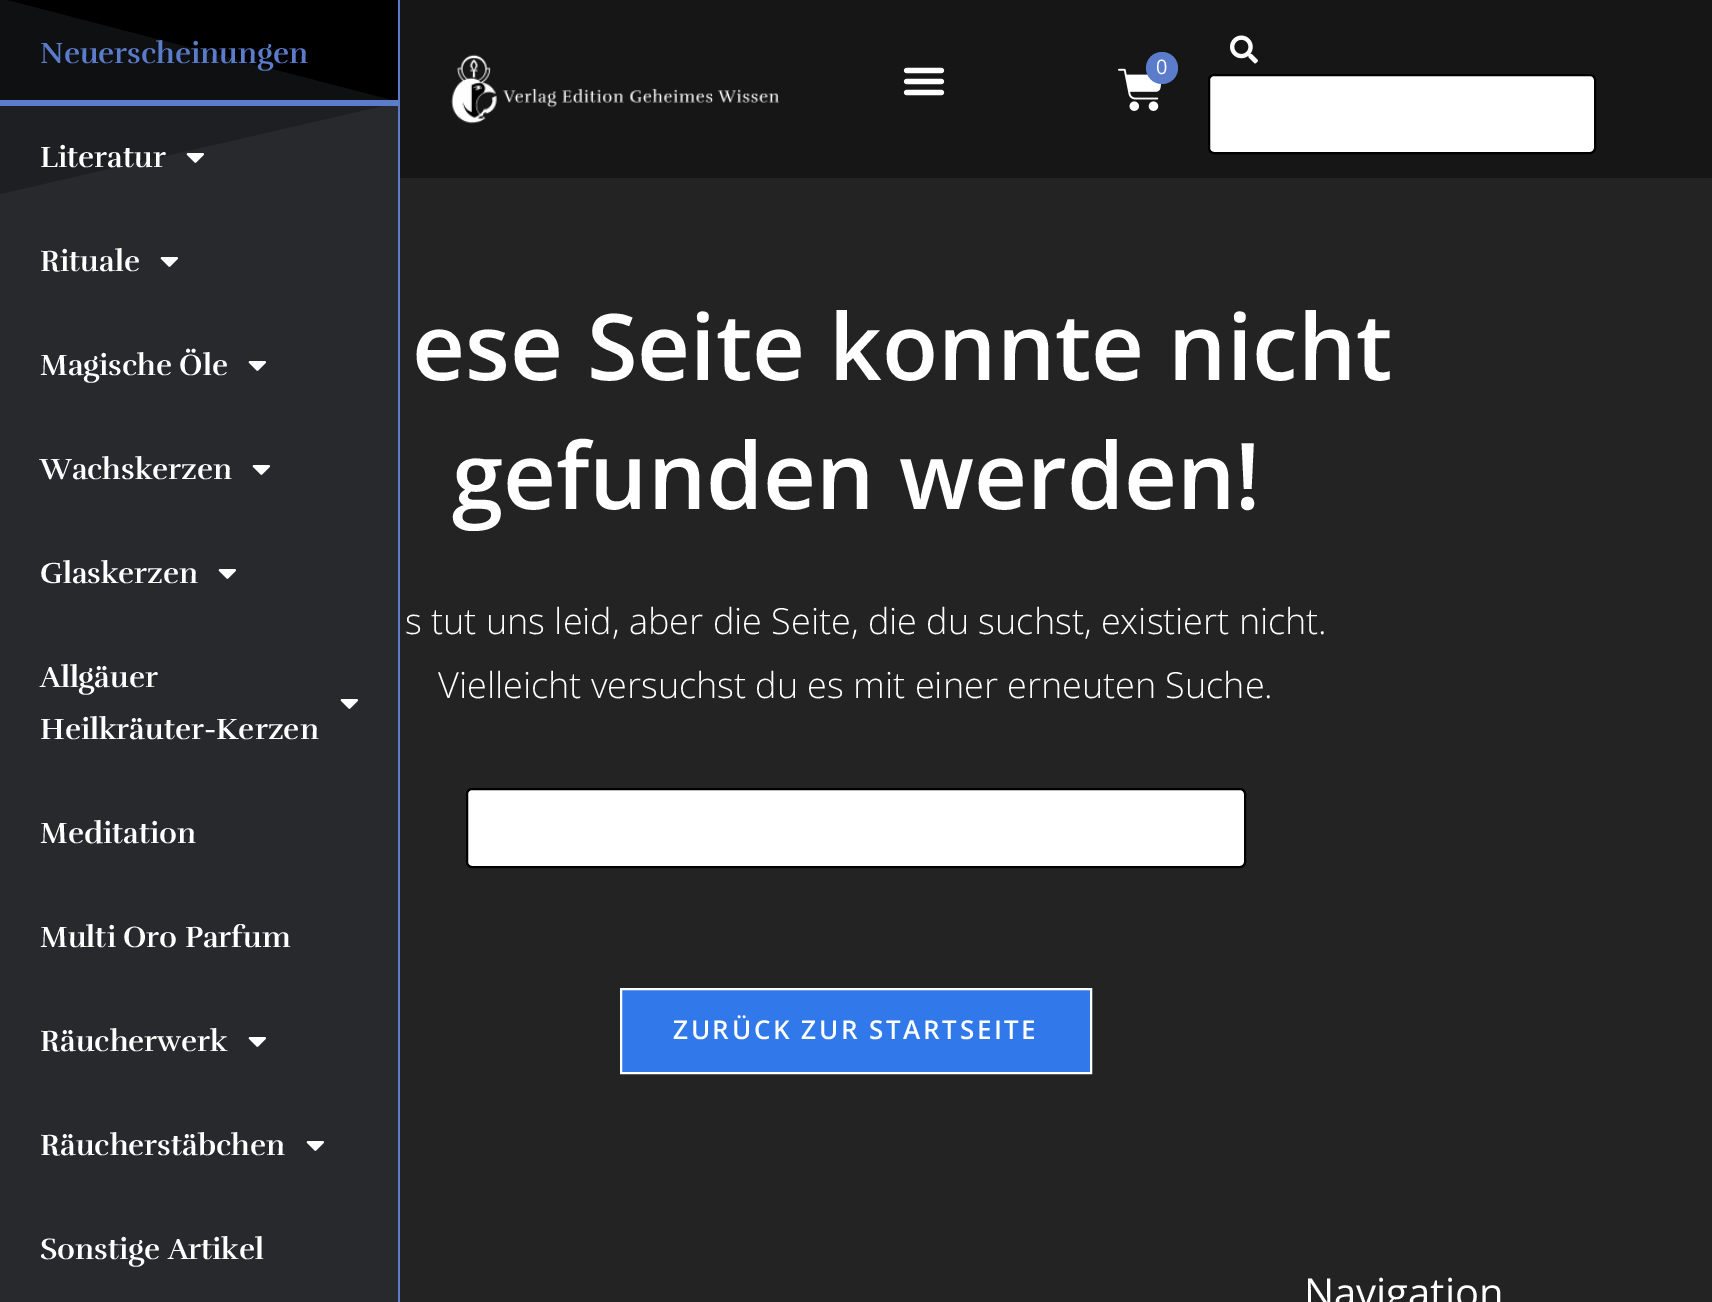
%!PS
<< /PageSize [1712 1302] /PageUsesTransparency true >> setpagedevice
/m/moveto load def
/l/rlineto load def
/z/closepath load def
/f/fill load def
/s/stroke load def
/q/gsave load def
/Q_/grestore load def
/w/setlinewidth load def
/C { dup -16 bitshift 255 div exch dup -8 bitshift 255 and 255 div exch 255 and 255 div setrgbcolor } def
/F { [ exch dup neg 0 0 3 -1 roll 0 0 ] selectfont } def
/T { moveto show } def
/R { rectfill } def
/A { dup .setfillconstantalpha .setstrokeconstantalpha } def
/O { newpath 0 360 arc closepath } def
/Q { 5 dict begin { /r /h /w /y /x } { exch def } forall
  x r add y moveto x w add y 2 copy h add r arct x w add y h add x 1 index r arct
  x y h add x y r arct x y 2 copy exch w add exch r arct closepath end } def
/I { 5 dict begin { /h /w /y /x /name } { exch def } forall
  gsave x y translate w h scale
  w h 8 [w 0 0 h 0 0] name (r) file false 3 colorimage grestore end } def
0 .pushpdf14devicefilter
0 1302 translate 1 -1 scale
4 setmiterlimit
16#232323 C
0 0 1712 1302 R
16#27292D C
0 106 398 1196 R
16#141517 C
0 0 393 100 R
16#5B7CCB C
398 0 2 1302 R
q
0 0 398 196 rectclip
16#000000 C
0 -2 m 400 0 l 0 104 l z f
0.25 A
400 -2 m -400 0 l 0 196 l 400 -92 l z f
Q_
/Rufina-Bold 30 F
(Neuerscheinungen) 40 63 T
0 100 398 6 R
16#FFFFFF C
(Literatur) 40 167 T
(1.rgb) 186 153 19 10 I
(Rituale) 40 271 T
(1.rgb) 160 257 19 10 I
(Magische Öle) 40 375 T
(1.rgb) 248 361 19 10 I
(Wachskerzen) 40 479 T
(1.rgb) 252 465 19 10 I
(Glaskerzen) 40 583 T
(1.rgb) 218 569 19 10 I
(Allgäuer) 40 687 T
(1.rgb) 340 699 19 10 I
(Heilkräuter-Kerzen) 40 739 T
(Meditation) 40 843 T
(Multi Oro Parfum) 40 947 T
(Räucherwerk) 40 1051 T
(1.rgb) 248 1037 19 10 I
(Räucherstäbchen) 40 1155 T
(1.rgb) 306 1141 19 10 I
(Sonstige Artikel) 40 1259 T
16#161616 C
400 0 1312 178 R
(2.rgb) 451 54 328 70 I
(3.rgb) 903 67 42 29 I
(4.rgb) 1118 68 44 43 I
16#5B7CCB C
1162 68 16 O f
/OpenSans-Regular 20 F
16#FFFFFF C
(0) 1156 74 T
(5.rgb) 1230 35 28 29 I
1209 75 386 78 5 Q q f Q_
16#000000 C
2 w
s
/OpenSans-SemiBold 92 F
16#FFFFFF C
(ese Seite konnte nicht) 412 380 T
(gefunden werden!) 452 509 T
/OpenSans-Light 36 F
(s tut uns leid, aber die Seite, die du suchst, existiert nicht.) 405 634 T
(Vielleicht versuchst du es mit einer erneuten Suche.) 438 698 T
467 789 778 78 5 Q q f Q_
16#000000 C
s
16#3178EA C
621 989 m 470 0 l 0 84 l -470 0 l z q f Q_
16#FFFFFF C
s
/OpenSans-SemiBold 26 F
673 1039 m 2.6 0 (ZURÜCK ZUR STARTSEITE) ashow
/OpenSans-Regular 40 F
(Navigation) 1304 1307 T
.poppdf14devicefilter showpage
